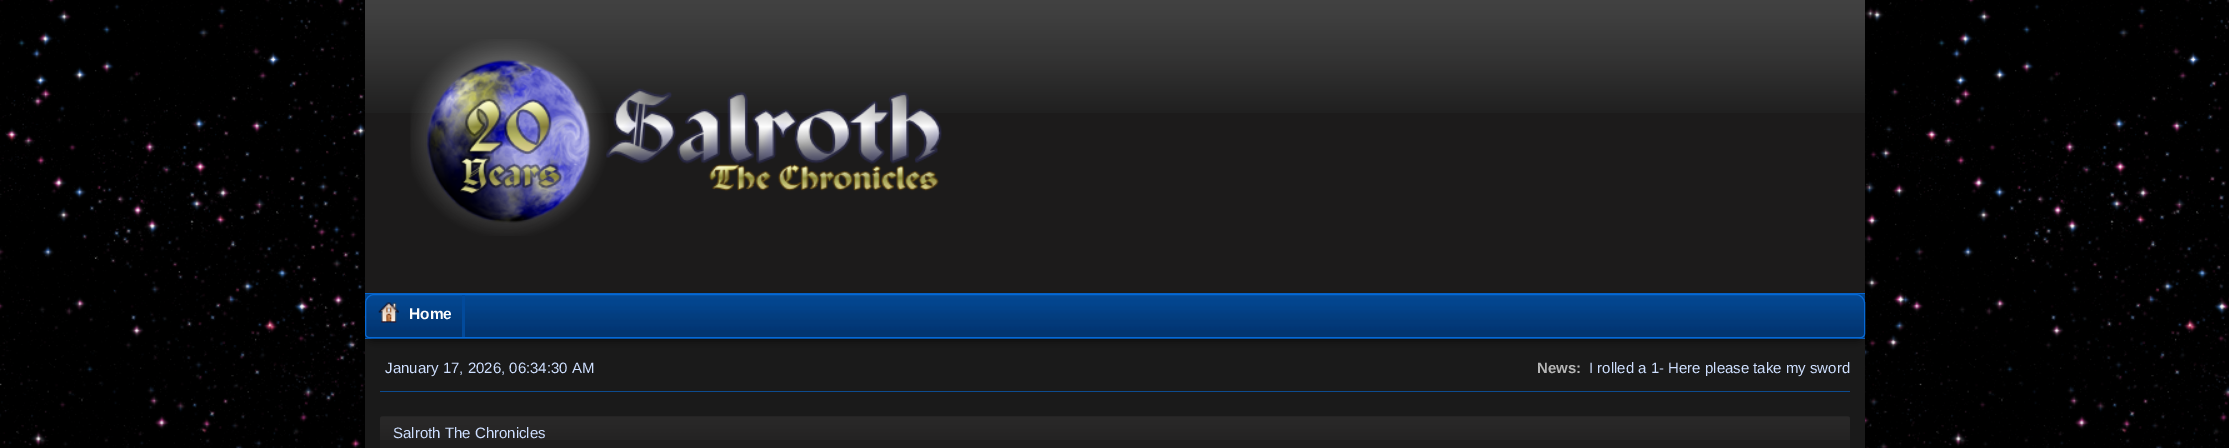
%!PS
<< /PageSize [2229 448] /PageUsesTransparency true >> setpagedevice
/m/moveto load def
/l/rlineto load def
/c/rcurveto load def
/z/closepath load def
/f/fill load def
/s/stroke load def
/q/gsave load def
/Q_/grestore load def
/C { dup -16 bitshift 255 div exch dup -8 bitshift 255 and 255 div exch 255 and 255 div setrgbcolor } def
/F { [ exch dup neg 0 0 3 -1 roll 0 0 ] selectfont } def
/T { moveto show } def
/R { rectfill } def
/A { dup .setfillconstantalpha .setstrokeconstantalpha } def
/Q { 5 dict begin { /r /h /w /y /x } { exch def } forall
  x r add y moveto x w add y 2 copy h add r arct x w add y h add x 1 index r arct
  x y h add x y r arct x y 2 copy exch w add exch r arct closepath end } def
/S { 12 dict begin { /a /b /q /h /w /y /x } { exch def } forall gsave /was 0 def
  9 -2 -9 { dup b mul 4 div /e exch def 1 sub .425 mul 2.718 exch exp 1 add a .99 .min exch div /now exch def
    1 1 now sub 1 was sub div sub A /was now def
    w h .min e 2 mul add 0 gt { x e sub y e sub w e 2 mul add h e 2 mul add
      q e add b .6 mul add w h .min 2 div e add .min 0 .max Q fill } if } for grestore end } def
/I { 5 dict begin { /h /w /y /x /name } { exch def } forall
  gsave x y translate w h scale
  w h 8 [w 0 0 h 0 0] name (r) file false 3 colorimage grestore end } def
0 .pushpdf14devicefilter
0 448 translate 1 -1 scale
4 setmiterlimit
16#FFFFFF C
0 0 2229 448 R
(1.rgb) 0 0 2229 448 I
16#1A1A1A C
365 339 1500 109 R
16#1C1B1B C
365 113 1500 180 R
(2.rgb) 365 0 1500 113 I
(3.rgb) 410 39 532 197 I
16#023570 C
365 330 1500 8 R
(4.rgb) 365 294 1500 36 I
16#0669D5 C
365 293 1500 1 R
365 338 1500 1 R
q
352 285 m 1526 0 l 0 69 l -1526 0 l z 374 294 m 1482 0 l 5 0 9 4 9 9 c 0 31 l 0 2 -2 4 -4 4 c -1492 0 l -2 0 -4 -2 -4 -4 c 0 -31 l 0 -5 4 -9 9 -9 c z eoclip newpath
16#000000 C
365 298 1500 43 9 4 .5 S
Q_
374 294.5 m 1482 0 l 4.5 0 8.5 4 8.5 8.5 c 0 31 l 0 2 -1.5 3.5 -3.5 3.5 c -1492 0 l -2 0 -3.5 -1.5 -3.5 -3.5 c 0 -31 l 0 -4.5 4 -8.5 8.5 -8.5 c z s
16#024A9B C
462 295 3 42 R
(5.rgb) 378 302 21 21 I
/LiberationSans-Bold 15.5 F
16#FCFCFC C
(Home) 409 319 T
16#0D4B8E C
380 391 1470 1 R
/LiberationSans-Regular 15 F
16#CEDFFF C
(January 17, 2026, 06:34:30 AM) 385 373 T
/LiberationSans-Bold 15 F
16#B5B5B5 C
(News:) 1537 373 T
/LiberationSans-Regular 15 F
16#CEDFFF C
(I rolled a 1- Here please take my sword) 1589 373 T
16#1F1E1E C
380 416 1470 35 2.5 Q f
(6.rgb) 380 416 1470 24 I
16#CEDFFF C
(Salroth The Chronicles) 393 438 T
.poppdf14devicefilter showpage
